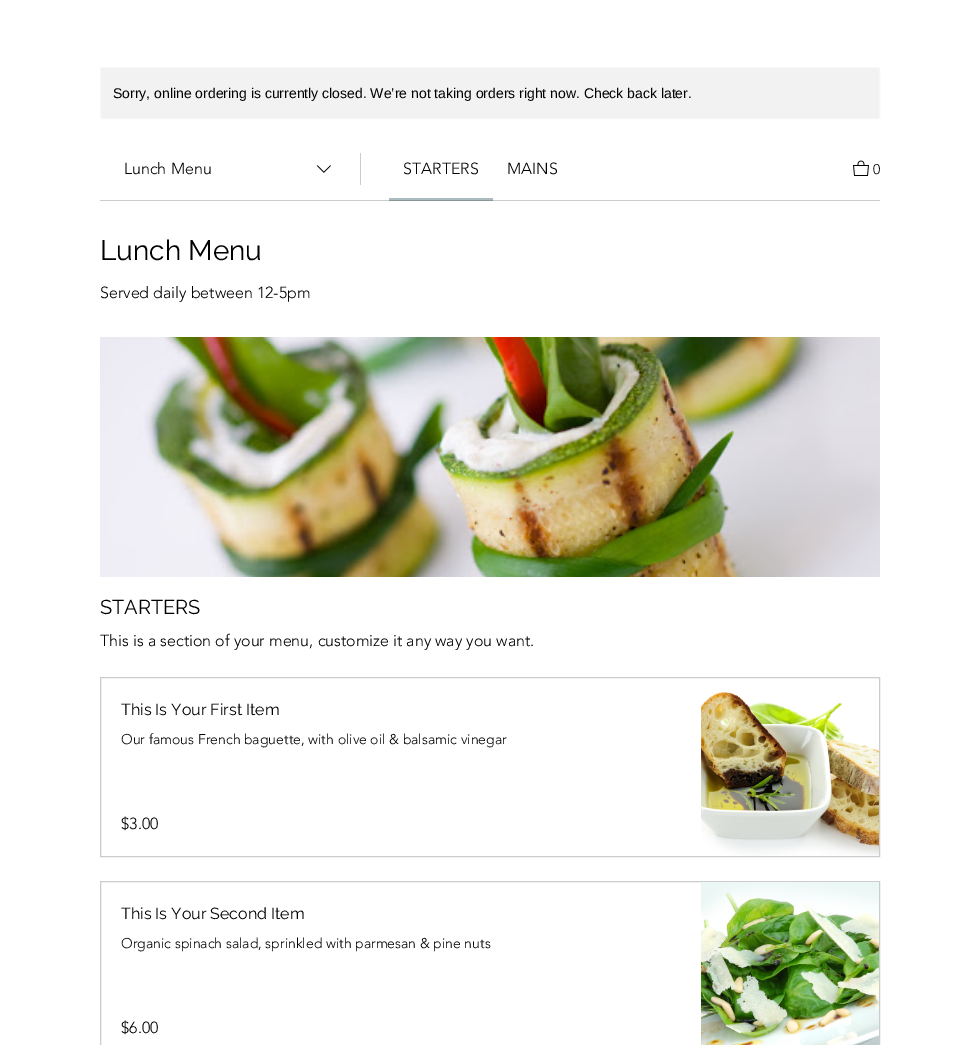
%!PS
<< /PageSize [979 1045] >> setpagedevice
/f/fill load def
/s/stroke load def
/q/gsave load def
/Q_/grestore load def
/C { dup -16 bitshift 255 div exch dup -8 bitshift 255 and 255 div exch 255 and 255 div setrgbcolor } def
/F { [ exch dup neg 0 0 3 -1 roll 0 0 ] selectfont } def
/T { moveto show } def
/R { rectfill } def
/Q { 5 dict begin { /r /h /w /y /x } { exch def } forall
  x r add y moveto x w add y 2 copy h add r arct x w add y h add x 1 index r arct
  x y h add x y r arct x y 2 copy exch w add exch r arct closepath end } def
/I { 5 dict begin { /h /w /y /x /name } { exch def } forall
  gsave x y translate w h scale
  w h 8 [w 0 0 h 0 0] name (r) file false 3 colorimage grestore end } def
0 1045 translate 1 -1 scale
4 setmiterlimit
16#FFFFFF C
0 0 979 1045 R
16#CCCCCC C
100 200 780 1 R
16#F2F2F2 C
100.5 67.5 779 51 1.5 Q q f Q_
16#F7F7F7 C
s
/LiberationSans-Regular 14 F
16#000000 C
(Sorry, online ordering is currently closed. We’re not taking orders right now. Check back later.) 113 98 T
/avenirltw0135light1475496-Light 16 F
(Lunch Menu) 124 174 T
(1.rgb) 316 165 15 8 I
16#CCCCCC C
360 153 1 32 R
16#AABCBF C
389 198 104 2 R
16#889699 C
389 200 104 1 R
16#000000 C
(STARTERS) 403 174 T
(MAINS) 507 174 T
(2.rgb) 853 160 16 16 I
/avenirltw0135light1475496-Light 14 F
(0) 873 174 T
/Raleway-Regular 28 F
(Lunch Menu) 100 260 T
/avenirltw0135light1475496-Light 16 F
(Served daily between 12-5pm) 100 298 T
(3.rgb) 100 337 780 240 I
/Raleway-Regular 20 F
(STARTERS) 100 614 T
/avenirltw0135light1475496-Light 16 F
(This is a section of your menu, customize it any way you want.) 100 646 T
16#CCCCCC C
100.5 677.5 779 179 rectstroke
/Raleway-Regular 16 F
16#000000 C
(This Is Your First Item) 121 715 T
/avenirltw0135light1475496-Light 14 F
(Our famous French baguette, with olive oil & balsamic vinegar) 121 744 T
/avenirltw0135light1475496-Light 16 F
($3.00) 121 829 T
(4.rgb) 701 692 178 164 I
16#CCCCCC C
100.5 881.5 779 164 rectstroke
/Raleway-Regular 16 F
16#000000 C
(This Is Your Second Item) 121 919 T
/avenirltw0135light1475496-Light 14 F
(Organic spinach salad, sprinkled with parmesan & pine nuts) 121 948 T
/avenirltw0135light1475496-Light 16 F
($6.00) 121 1033 T
(5.rgb) 701 882 178 163 I
showpage
